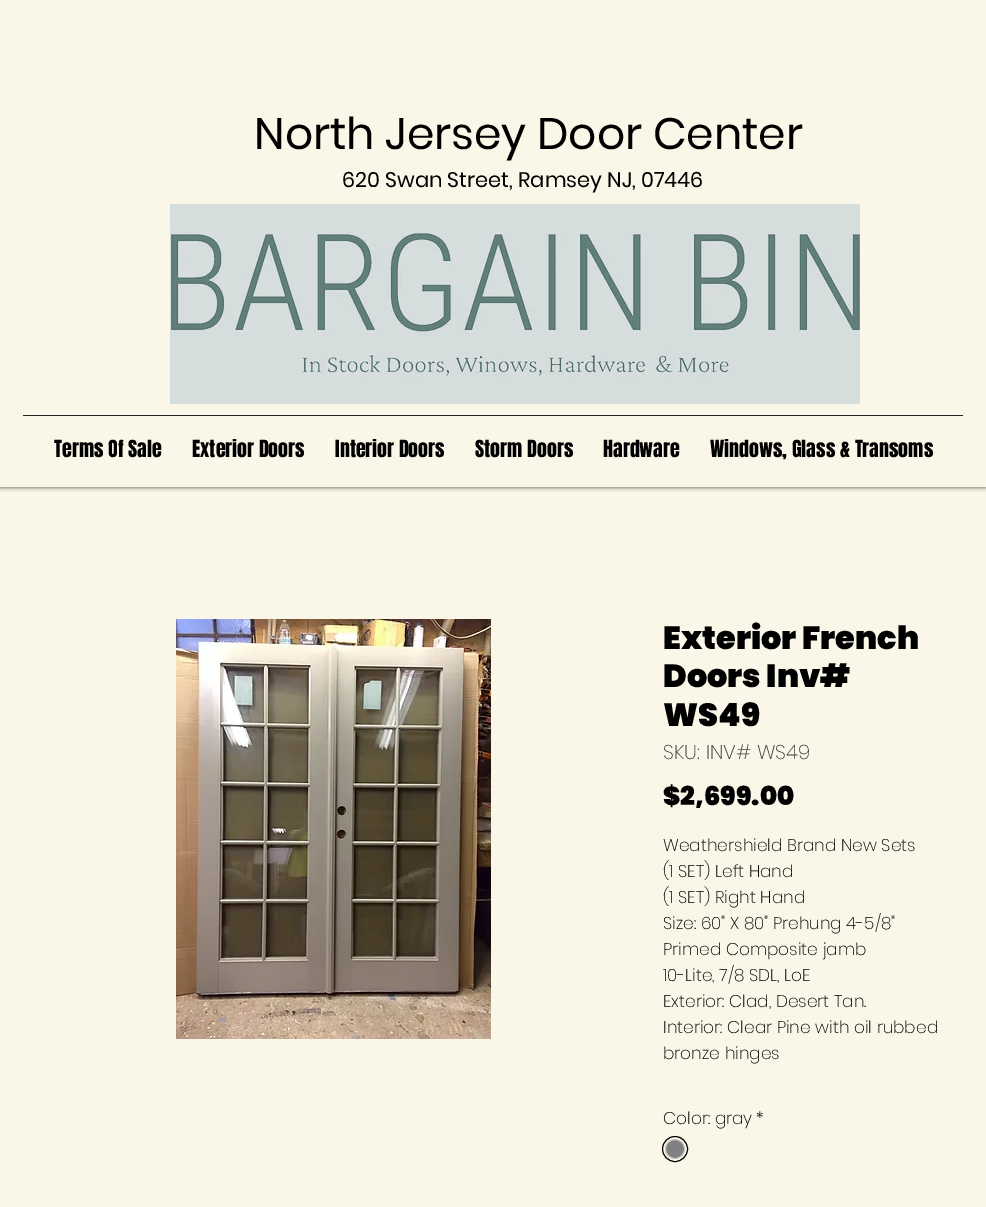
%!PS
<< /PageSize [986 1207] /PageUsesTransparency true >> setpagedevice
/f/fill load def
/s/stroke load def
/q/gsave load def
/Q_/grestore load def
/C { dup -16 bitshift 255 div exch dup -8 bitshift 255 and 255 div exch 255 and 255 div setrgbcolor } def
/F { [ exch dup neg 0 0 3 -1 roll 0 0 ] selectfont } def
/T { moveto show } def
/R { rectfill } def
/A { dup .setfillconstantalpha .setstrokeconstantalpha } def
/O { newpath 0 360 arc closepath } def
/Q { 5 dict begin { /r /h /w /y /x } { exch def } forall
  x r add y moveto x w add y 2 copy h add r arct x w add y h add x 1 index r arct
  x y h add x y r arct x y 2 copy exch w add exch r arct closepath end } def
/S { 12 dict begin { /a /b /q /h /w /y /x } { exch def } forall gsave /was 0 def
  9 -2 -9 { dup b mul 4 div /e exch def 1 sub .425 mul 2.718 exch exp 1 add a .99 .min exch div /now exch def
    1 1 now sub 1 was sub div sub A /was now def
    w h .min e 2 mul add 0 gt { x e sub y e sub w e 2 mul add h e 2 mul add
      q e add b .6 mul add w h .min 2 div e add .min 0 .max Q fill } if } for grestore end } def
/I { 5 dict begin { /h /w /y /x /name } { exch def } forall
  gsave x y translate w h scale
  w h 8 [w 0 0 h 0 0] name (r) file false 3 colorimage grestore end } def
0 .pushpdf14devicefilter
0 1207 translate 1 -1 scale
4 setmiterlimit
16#FAF7E8 C
0 0 986 1207 R
q
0 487 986 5 rectclip
16#000000 C
0 0 986 487 0 2.5 .7 S
Q_
/Poppins-Regular 44 F
16#000000 C
(North Jersey Door Center) 254 149 T
/Poppins-Regular 21 F
(620 Swan Street, Ramsey NJ, 07446) 342 187 T
(1.rgb) 170 204 690 200 I
16#262523 C
23 415 940 1 R
/Anton-Regular 20 F
16#000000 C
(Terms Of Sale) 54 457 T
(Exterior Doors) 192 457 T
(Interior Doors) 335 457 T
(Storm Doors) 475 457 T
(Hardware) 603 457 T
(Windows, Glass & Transoms) 710 457 T
(2.rgb) 176 619 315 420 I
/Poppins-Black 32 F
(Exterior French) 663 649 T
(Doors Inv#) 663 687 T
(WS49) 663 726 T
/Poppins-ExtraLight 20 F
16#404040 C
(SKU: INV# WS49) 663 759 T
/Poppins-Black 26 F
16#000000 C
($2,699.00) 663 805 T
/Poppins-ExtraLight 17 F
(Weathershield Brand New Sets) 663 851 T
(\(1 SET\) Left Hand) 663 877 T
(\(1 SET\) Right Hand) 663 903 T
(Size: 60" X 80" Prehung 4-5/8") 663 929 T
(Primed Composite jamb) 663 955 T
(10-Lite, 7/8 SDL, LoE) 663 981 T
(Exterior: Clad, Desert Tan.) 663 1007 T
(Interior: Clear Pine with oil rubbed) 663 1033 T
(bronze hinges) 663 1059 T
(Color: gray) 663 1124 T
(*) 756 1124 T
675 1149 12.5 O s
16#808080 C
675 1149 9.5 O q f Q_
16#C9C9C9 C
s
.poppdf14devicefilter showpage
